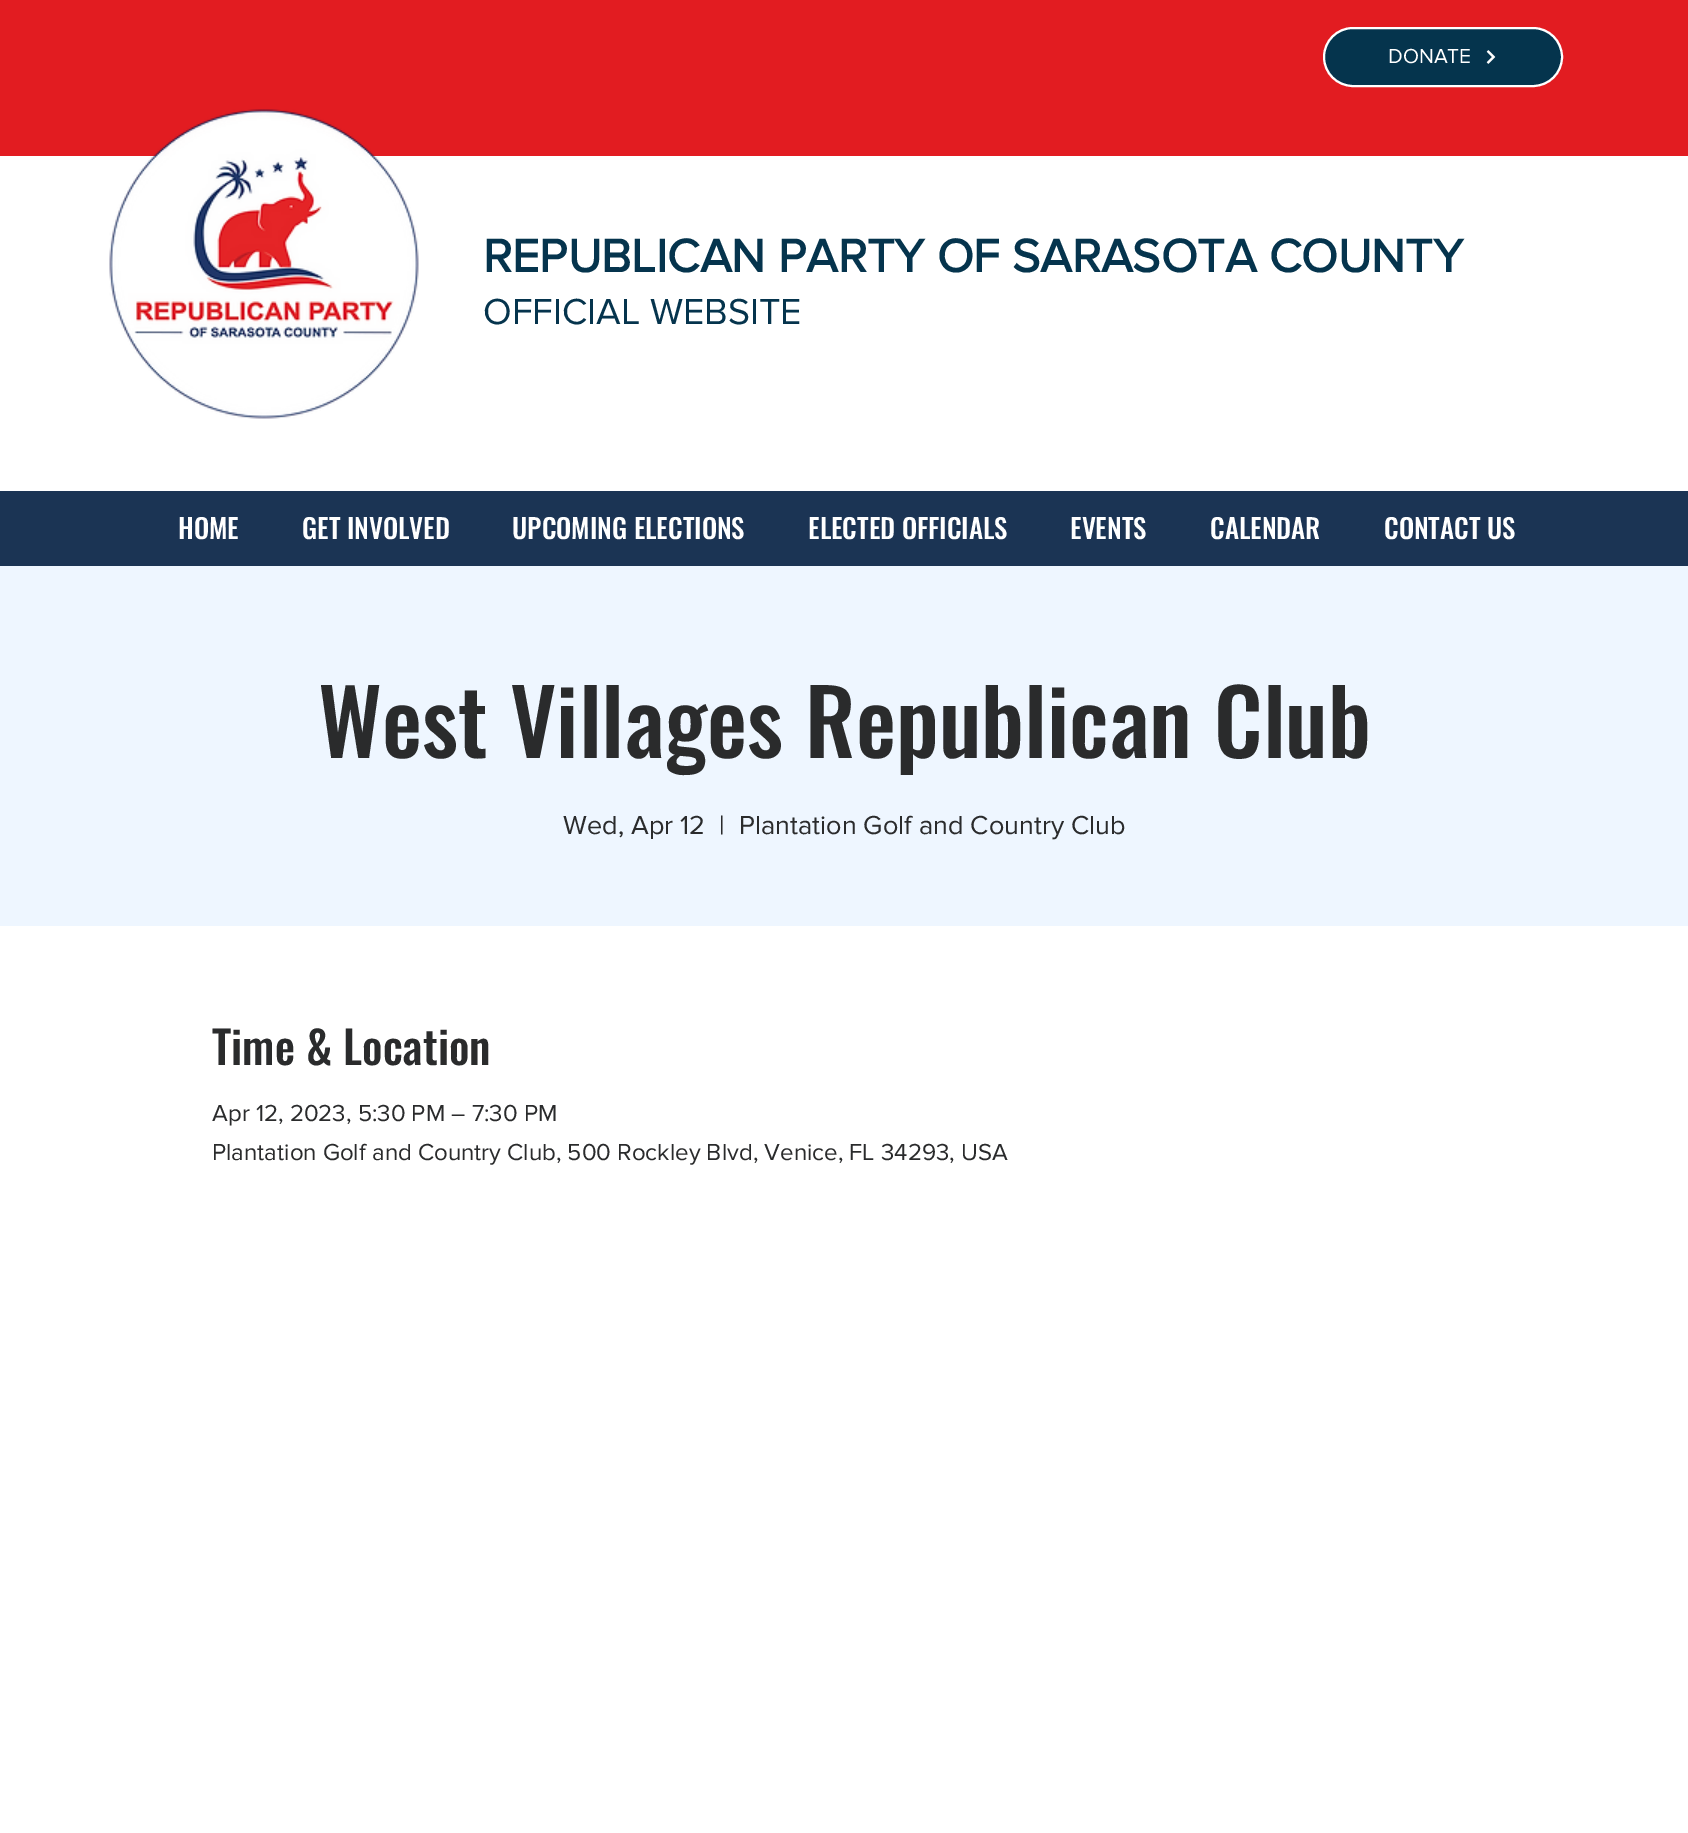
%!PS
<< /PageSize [1688 1833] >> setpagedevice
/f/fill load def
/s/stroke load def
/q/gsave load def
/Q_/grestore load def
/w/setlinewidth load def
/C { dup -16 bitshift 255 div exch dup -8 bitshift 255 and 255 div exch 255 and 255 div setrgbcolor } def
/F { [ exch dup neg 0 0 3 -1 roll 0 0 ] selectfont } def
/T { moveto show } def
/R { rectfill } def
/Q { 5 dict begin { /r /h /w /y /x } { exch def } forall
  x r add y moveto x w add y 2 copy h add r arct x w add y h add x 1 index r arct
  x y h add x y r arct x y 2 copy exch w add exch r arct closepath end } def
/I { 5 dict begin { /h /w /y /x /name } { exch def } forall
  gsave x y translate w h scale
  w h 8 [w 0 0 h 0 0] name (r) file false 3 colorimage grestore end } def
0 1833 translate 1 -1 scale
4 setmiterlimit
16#FFFFFF C
0 0 1688 1833 R
16#E21C21 C
0 0 1688 156 R
16#05344D C
1324 28 238 58 29 Q q f Q_
16#FFFFFF C
2 w
s
/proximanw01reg-Regular 21 F
(DONATE) 1388 63 T
(1.rgb) 1486 50 10 14 I
(2.rgb) 109 109 310 310 I
/proximanw01reg-Bold 48 F
16#05344D C
(REPUBLICAN PARTY OF SARASOTA COUNTY) 483 272 T
/proximanw01reg-Regular 37.5 F
(OFFICIAL WEBSITE) 483 324 T
16#1B3454 C
0 491 1688 75 R
/Oswald-Medium 27 F
16#FFFFFF C
(HOME) 178 539 T
(GET INVOLVED) 302 539 T
(UPCOMING ELECTIONS) 512 539 T
(ELECTED OFFICIALS) 808 539 T
(EVENTS) 1070 539 T
(CALENDAR) 1210 539 T
(CONTACT US) 1384 539 T
16#EEF6FF C
0 566 1688 360 R
/Oswald-Medium 90 F
16#2A2B2C C
(West Villages Republican Club) 318 758 T
/proximanw01reg-Regular 27 F
(Wed, Apr 12) 563 834 T
(|) 719 834 T
(Plantation Golf and Country Club) 739 834 T
/Oswald-Medium 45 F
(Time & Location) 212 1065 T
/proximanw01reg-Regular 24 F
(Apr 12, 2023, 5:30 PM – 7:30 PM) 212 1121 T
(Plantation Golf and Country Club, 500 Rockley Blvd, Venice, FL 34293, USA) 212 1160 T
showpage
